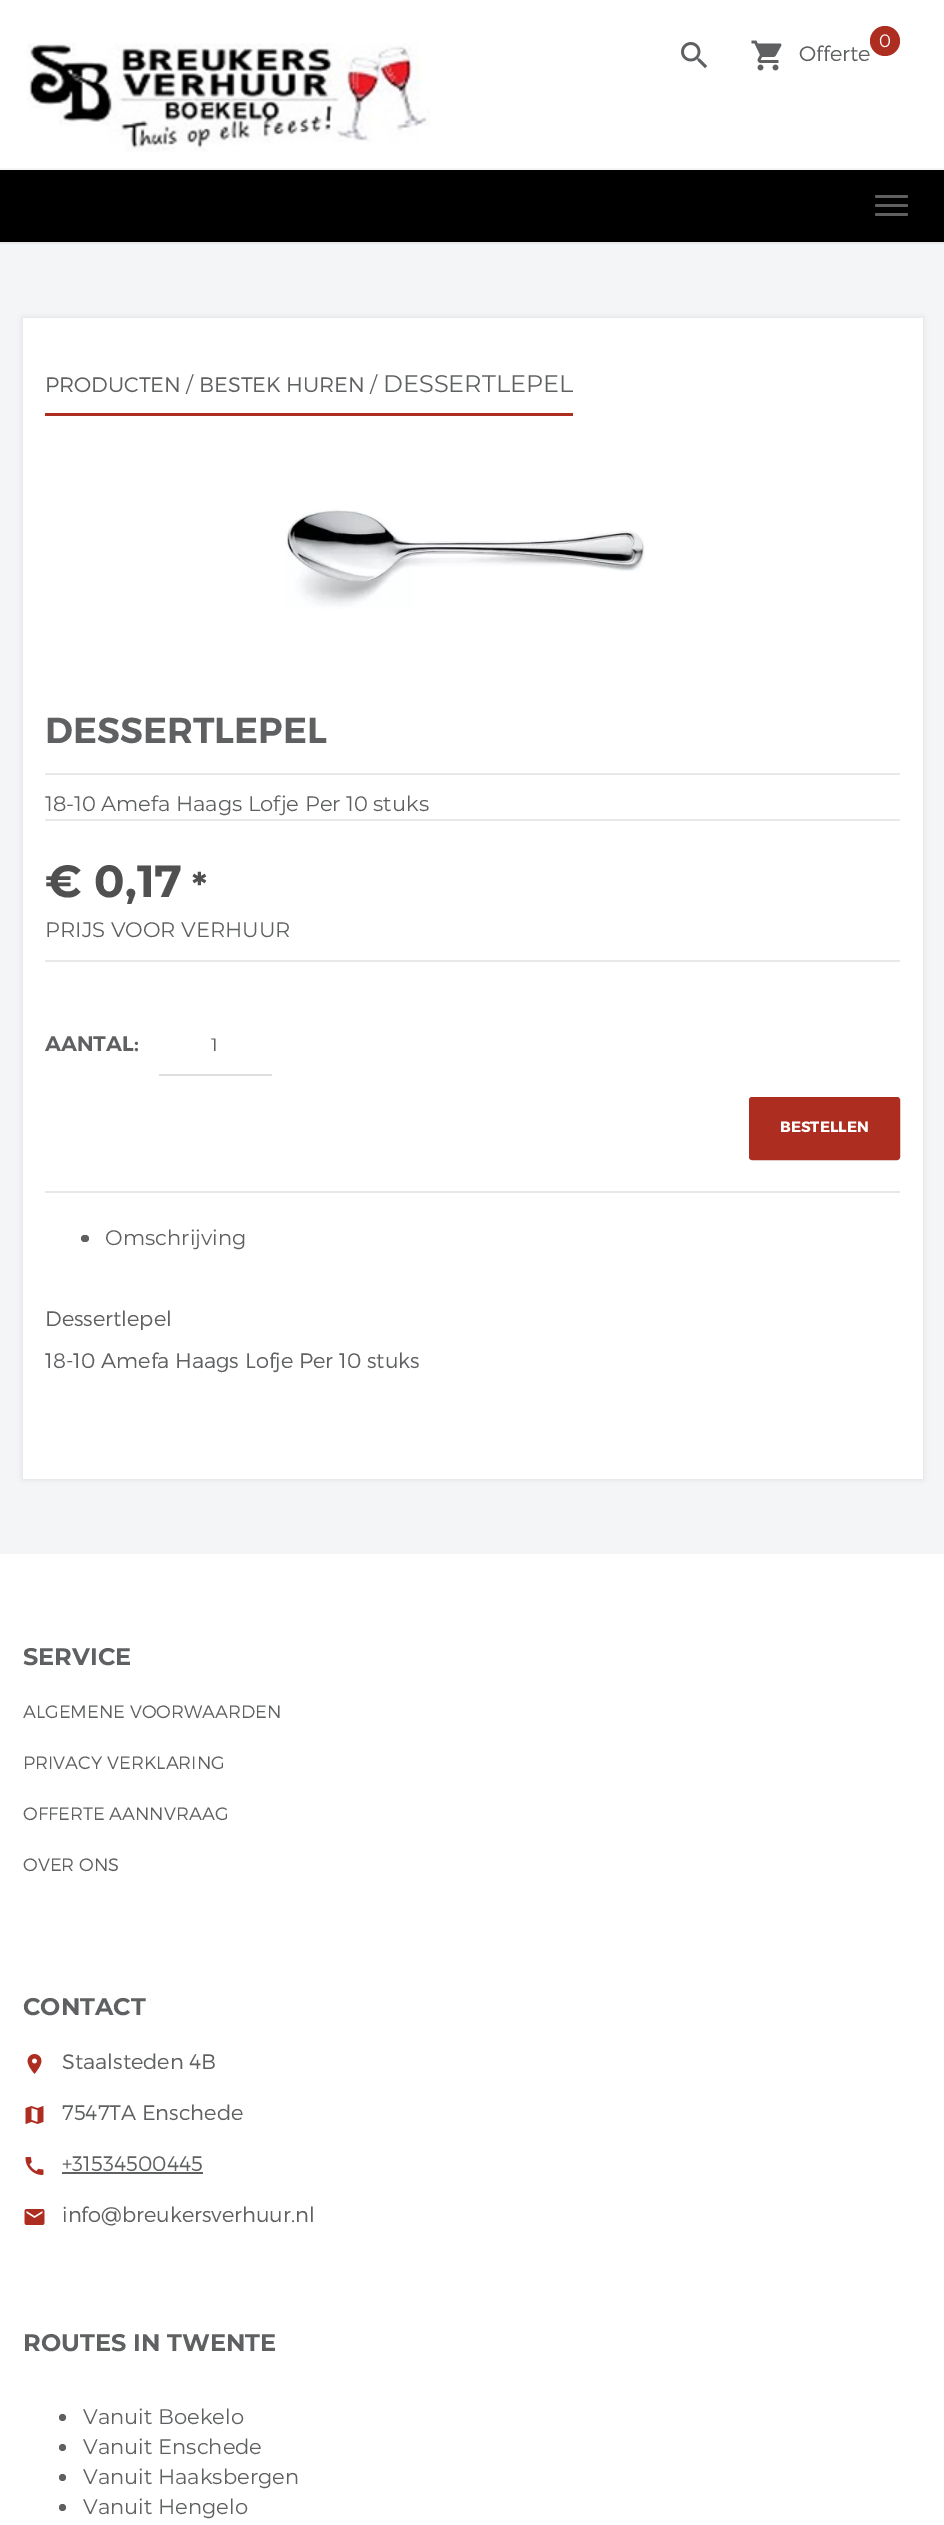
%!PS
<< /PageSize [944 2525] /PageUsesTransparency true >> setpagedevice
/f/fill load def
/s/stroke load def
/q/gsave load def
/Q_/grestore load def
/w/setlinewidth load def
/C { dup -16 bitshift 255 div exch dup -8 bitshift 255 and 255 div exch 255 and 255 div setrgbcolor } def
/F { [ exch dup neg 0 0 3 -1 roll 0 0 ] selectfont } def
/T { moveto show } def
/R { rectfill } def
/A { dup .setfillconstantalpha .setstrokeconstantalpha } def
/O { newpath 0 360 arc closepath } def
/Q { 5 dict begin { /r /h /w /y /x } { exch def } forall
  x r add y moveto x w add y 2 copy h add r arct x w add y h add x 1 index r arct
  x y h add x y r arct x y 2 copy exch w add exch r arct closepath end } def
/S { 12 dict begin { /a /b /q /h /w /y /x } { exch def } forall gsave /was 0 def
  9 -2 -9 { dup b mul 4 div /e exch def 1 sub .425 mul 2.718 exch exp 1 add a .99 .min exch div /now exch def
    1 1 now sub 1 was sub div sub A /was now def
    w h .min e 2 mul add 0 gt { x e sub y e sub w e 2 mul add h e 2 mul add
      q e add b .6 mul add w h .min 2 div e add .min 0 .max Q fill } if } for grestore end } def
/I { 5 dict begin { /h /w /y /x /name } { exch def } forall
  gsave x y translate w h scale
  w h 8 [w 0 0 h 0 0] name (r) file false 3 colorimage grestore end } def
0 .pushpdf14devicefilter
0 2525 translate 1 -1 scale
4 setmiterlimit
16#F4F5F6 C
0 0 944 2525 R
16#FFFFFF C
0 0 944 168 R
16#E7E7E7 C
0 242 944 2 R
(1.rgb) 27 43 403 109 I
(2.rgb) 681 42 27 27 I
(3.rgb) 751 40 31 31 I
/Montserrat-Light 21 F
16#5E6062 C
(Offerte) 799 61 T
16#AE2D21 C
885 41 15 O f
/Montserrat-Regular 18 F
16#FFFFFF C
(0) 879 47 T
16#000000 C
0 170 944 72 R
16#5E6062 C
875 195 33 3 1.5 Q f
875 204 33 3 1.5 Q f
875 213 33 3 1.5 Q f
16#BDBDBD C
23 318 900 1161 0 3 .5 S
16#FFFFFF C
23 318 900 1161 R
16#AE2D21 C
45 413 528 3 R
/Montserrat-Light 21 F
16#5E6062 C
(PRODUCTEN) 45 392 T
/Montserrat-Regular 21 F
(/) 186 392 T
/Montserrat-Light 21 F
(BESTEK HUREN) 199 392 T
/Montserrat-Regular 21 F
(/) 370 392 T
/Montserrat-Regular 24 F
(DESSERTLEPEL) 383 392 T
(4.rgb) 285 509 360 100 I
/Montserrat-SemiBold 36 F
(DESSERTLEPEL) 45 743 T
16#E8E8E8 C
45 773 855 2 R
/Montserrat-Regular 21 F
16#5E6062 C
(18-10 Amefa Haags Lofje Per 10 stuks) 45 811 T
16#E8E8E8 C
45 819 855 2 R
/Montserrat-Bold 45 F
16#505050 C
(€ 0,17) 45 897 T
/Montserrat-Bold 34 F
(*) 192 897 T
/Montserrat-Regular 21 F
16#5E6062 C
(PRIJS VOOR VERHUUR) 45 937 T
16#E8E8E8 C
45 960 855 2 R
/Montserrat-SemiBold 21 F
16#5E6062 C
(AANTAL:) 45 1051 T
16#DFDFDF C
159 1074 113 2 R
/Montserrat-Regular 18 F
16#5E6062 C
(1) 211 1051 T
16#AE2D21 C
750 1098 149 61 2 Q q f Q_
2 w
s
/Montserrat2-Bold 15 F
16#FFFFFF C
(BESTELLEN) 780 1132 T
16#E8E8E8 C
45 1191 855 2 R
16#5E6062 C
81 1235 8 7 3.5 Q f
/Montserrat-Regular 21 F
(Omschrijving) 105 1245 T
/Montserrat-Light 21 F
(Dessertlepel) 45 1326 T
(18-10 Amefa Haags Lofje Per 10 stuks) 45 1368 T
16#FFFFFF C
0 1554 944 971 R
/Montserrat-Bold 24 F
16#5E6062 C
(SERVICE) 23 1665 T
/Montserrat-Light 18 F
(ALGEMENE VOORWAARDEN) 23 1718 T
(PRIVACY VERKLARING) 23 1769 T
(OFFERTE AANNVRAAG) 23 1820 T
(OVER ONS) 23 1871 T
/Montserrat-Bold 24 F
(CONTACT) 23 2015 T
(5.rgb) 27 2054 15 20 I
/Montserrat-Light 21 F
(Staalsteden 4B) 62 2069 T
(6.rgb) 25 2106 19 18 I
(7547TA Enschede) 62 2120 T
(7.rgb) 25 2157 19 18 I
(+31534500445) 62 2171 T
62 2172 141 2 R
(8.rgb) 24 2209 21 16 I
(info@breukersverhuur.nl) 62 2222 T
/Montserrat-Bold 24 F
(ROUTES IN TWENTE) 23 2351 T
62.5 2417.5 3.5 O f
/Montserrat-Regular 21 F
(Vanuit Boekelo) 83 2424 T
62.5 2447.5 3.5 O f
(Vanuit Enschede) 83 2454 T
62.5 2477.5 3.5 O f
(Vanuit Haaksbergen) 83 2484 T
62.5 2507.5 3.5 O f
(Vanuit Hengelo) 83 2514 T
.poppdf14devicefilter showpage
